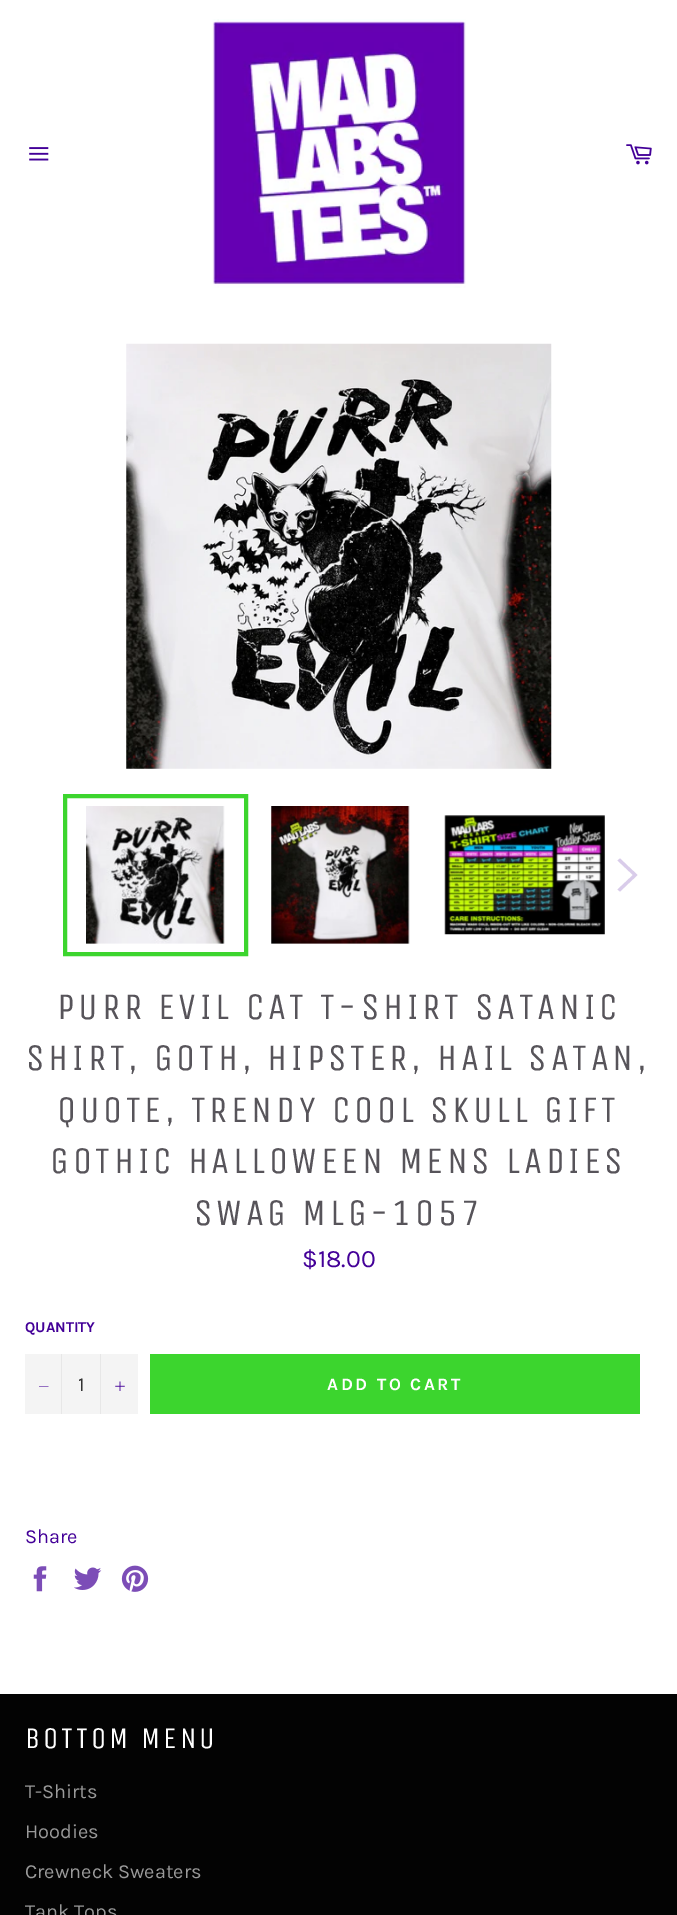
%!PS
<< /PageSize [677 1915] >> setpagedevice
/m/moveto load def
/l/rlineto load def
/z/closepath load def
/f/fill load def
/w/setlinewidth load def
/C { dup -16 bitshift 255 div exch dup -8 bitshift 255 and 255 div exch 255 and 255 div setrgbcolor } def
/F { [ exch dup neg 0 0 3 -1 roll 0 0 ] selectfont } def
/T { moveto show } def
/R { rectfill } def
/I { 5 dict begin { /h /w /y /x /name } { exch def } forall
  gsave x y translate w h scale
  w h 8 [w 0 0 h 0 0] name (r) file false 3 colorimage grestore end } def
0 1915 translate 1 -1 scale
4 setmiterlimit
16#FFFFFF C
0 0 677 1915 R
(1.rgb) 29 147 20 14 I
(2.rgb) 212 19 254 269 I
(3.rgb) 626 144 26 21 I
(4.rgb) 126 343 426 426 I
(5.rgb) 86 806 139 138 I
16#3CD52E C
4 w
65 796 181 158 rectstroke
(6.rgb) 271 806 139 138 I
(7.rgb) 444 815 161 120 I
16#D9CCEA C
617.5 860.5 m 2.5 -2 l 17.5 16.5 l -17.5 16.5 l -2.5 -2 l 15.5 -14.5 l z f
/UnicaOne-Regular 37.5 F
16#57545A C
57 1019 m 3.75 0 (PURR EVIL CAT T-SHIRT SATANIC) ashow
26 1070 m 3.75 0 (SHIRT, GOTH, HIPSTER, HAIL SATAN,) ashow
57 1122 m 3.75 0 (QUOTE, TRENDY COOL SKULL GIFT) ashow
50 1173 m 3.75 0 (GOTHIC HALLOWEEN MENS LADIES) ashow
194 1225 m 3.75 0 (SWAG MLG-1057) ashow
/Karla-Regular 25 F
16#430098 C
($18.00) 302 1267 T
/Karla-Bold 15 F
(QUANTITY) 25 1332 T
16#F4F4F4 C
25 1354 113 60 R
16#E7E7E7 C
61 1354 1 60 R
16#430098 C
48.5 1386 m 0 .5 l -9.5 0 l 0 -.5 l z eofill
/Karla-Regular 20 F
16#333333 C
(1) 78 1391 T
16#E7E7E7 C
100 1354 1 60 R
(8.rgb) 115 1381 10 10 I
16#3CD52E C
150 1354 490 60 R
/Karla-Bold 17.5 F
16#FFFFFF C
327 1390 m 2.6 0 (ADD TO CART) ashow
/Karla-Regular 20 F
16#430098 C
(Share) 25 1543 T
(9.rgb) 33 1566 14 26 I
(10.rgb) 74 1567 28 23 I
(11.rgb) 121 1565 28 27 I
16#030303 C
0 1694 677 221 R
/UnicaOne-Regular 30 F
16#FFFFFF C
25 1748 m 3 0 (BOTTOM MENU) ashow
/Karla-Regular 20 F
16#9A9A9A C
(T-Shirts) 25 1798 T
(Hoodies) 25 1838 T
(Crewneck Sweaters) 25 1878 T
(Tank Tops) 25 1918 T
showpage
